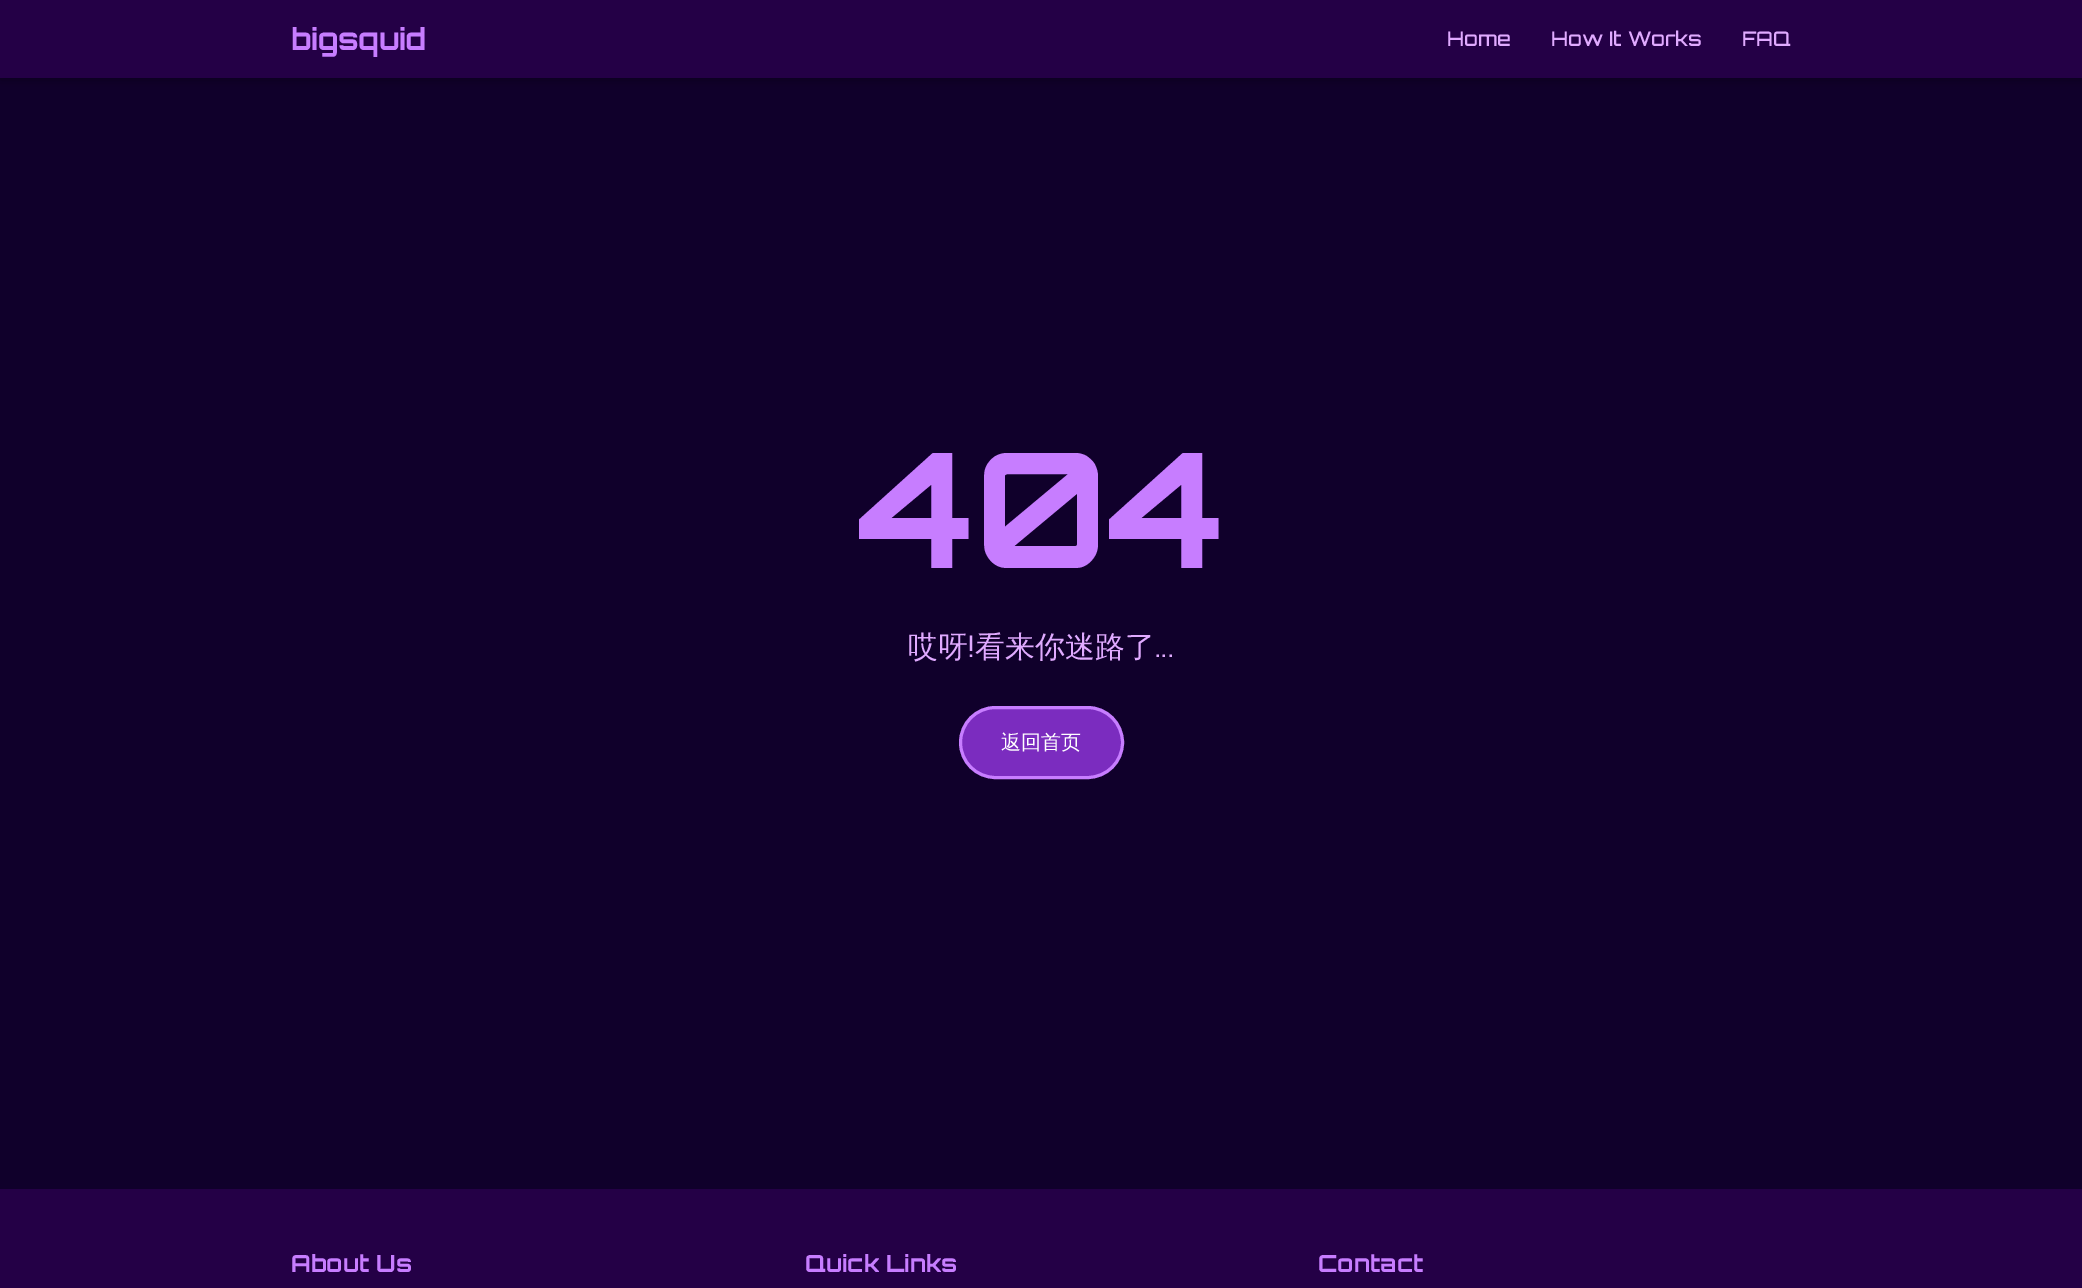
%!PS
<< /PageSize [2082 1288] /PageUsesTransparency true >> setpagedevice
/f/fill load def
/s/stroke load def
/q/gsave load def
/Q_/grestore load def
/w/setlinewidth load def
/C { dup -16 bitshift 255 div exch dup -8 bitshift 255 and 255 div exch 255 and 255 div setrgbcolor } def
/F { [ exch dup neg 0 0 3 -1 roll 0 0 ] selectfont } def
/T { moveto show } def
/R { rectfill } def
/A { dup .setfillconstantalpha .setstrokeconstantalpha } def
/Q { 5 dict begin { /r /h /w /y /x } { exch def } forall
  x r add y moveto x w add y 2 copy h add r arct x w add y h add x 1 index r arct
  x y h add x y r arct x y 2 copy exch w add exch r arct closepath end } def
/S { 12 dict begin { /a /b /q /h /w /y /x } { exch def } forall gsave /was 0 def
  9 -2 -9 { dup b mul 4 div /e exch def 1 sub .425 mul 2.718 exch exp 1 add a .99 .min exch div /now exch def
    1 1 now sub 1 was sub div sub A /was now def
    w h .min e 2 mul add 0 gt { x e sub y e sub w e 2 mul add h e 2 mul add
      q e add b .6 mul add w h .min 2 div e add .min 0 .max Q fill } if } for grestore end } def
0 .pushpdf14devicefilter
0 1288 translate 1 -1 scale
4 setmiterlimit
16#10002B C
0 0 2082 1288 R
16#000000 C
0 3 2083 77 0 6 .3 S
16#240046 C
0 0 2082 78 R
/Orbitron-Bold 30 F
16#C77DFF C
(bigsquid) 291 50 T
/Orbitron-Medium 20 F
16#E0AAFF C
(Home) 1447 46 T
(How It Works) 1551 46 T
(FAQ) 1742 46 T
/Orbitron-Bold 160 F
16#C77DFF C
(404) 858 568 T
/WenQuanYiZenHei-Medium 30 F
16#E0AAFF C
(哎呀) 908 657 T
/Orbitron-Regular 30 F
(!) 968 657 T
/WenQuanYiZenHei-Medium 30 F
(看来你迷路了) 975 657 T
/Orbitron-Regular 30 F
(...) 1155 657 T
16#7B2CBF C
960.5 707.5 162 70 35 Q q f Q_
16#C77DFF C
3 w
s
/WenQuanYiZenHei-Medium 20 F
16#FFFFFF C
(返回首页) 1001 749 T
16#240046 C
0 1189 2082 99 R
/Orbitron-Bold 23.5 F
16#C77DFF C
(About Us) 291 1272 T
(Quick Links) 805 1272 T
(Contact) 1318 1272 T
.poppdf14devicefilter showpage
